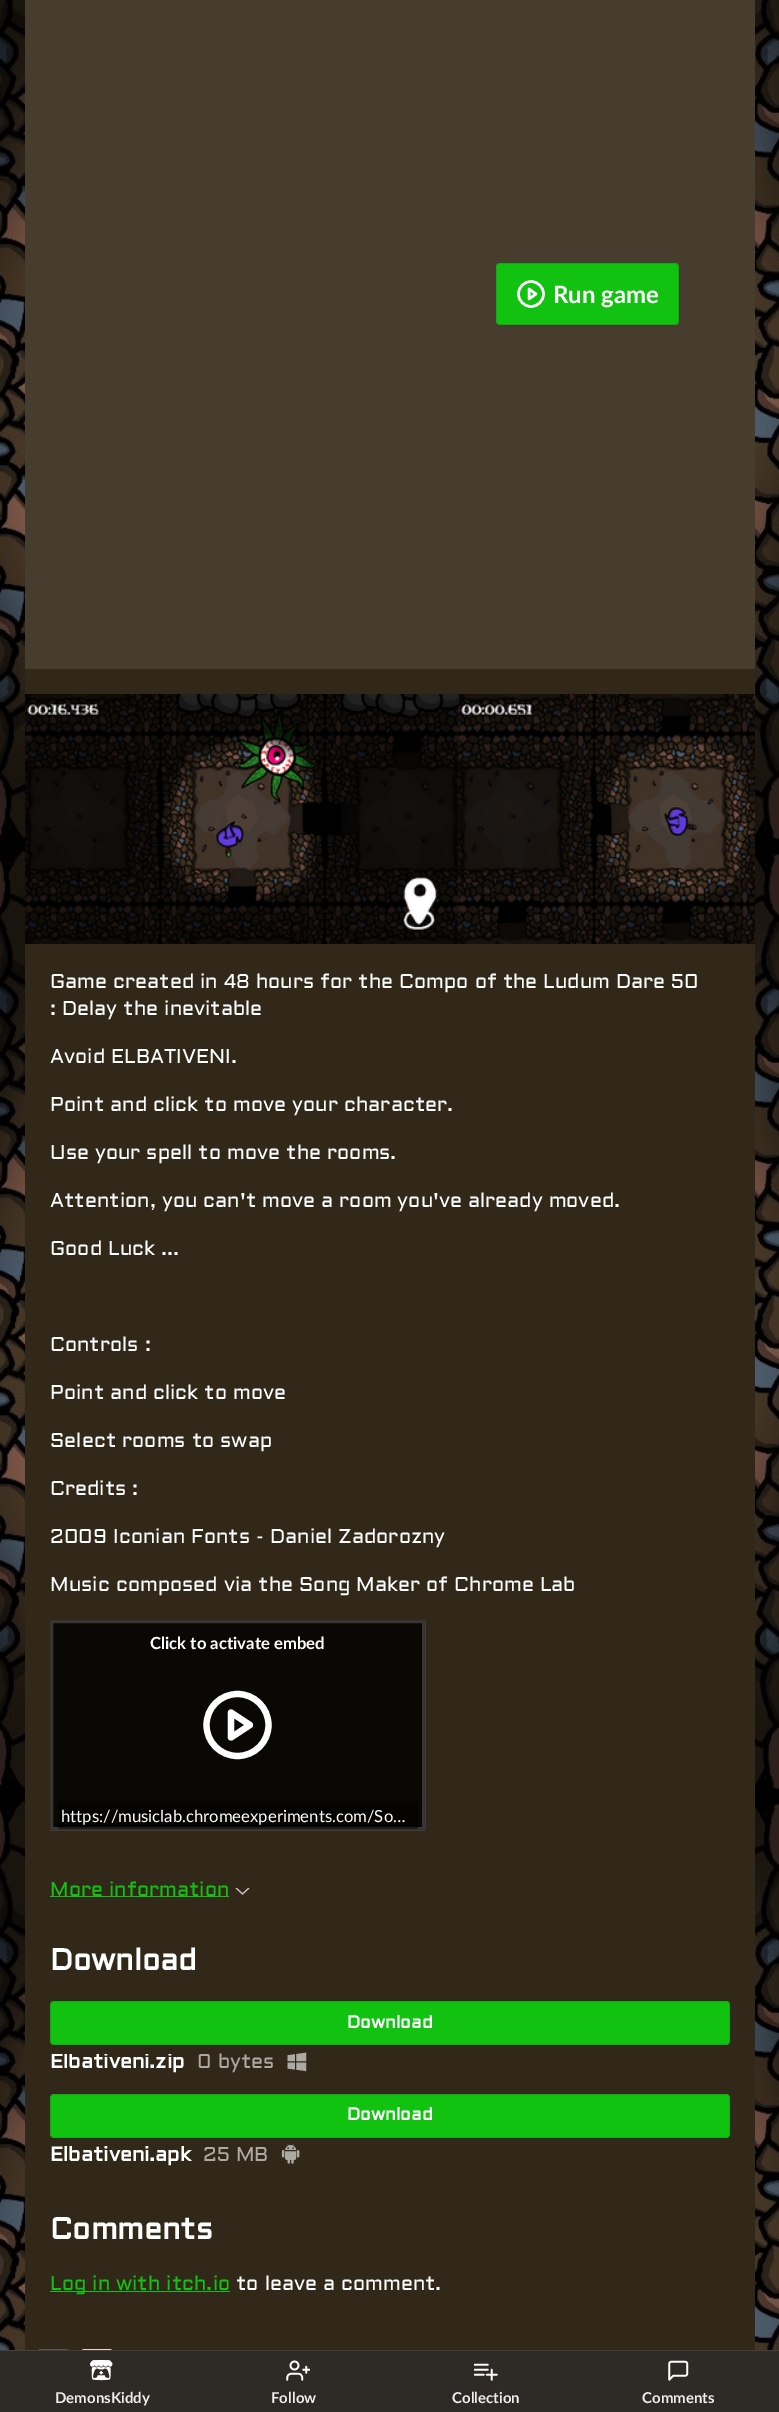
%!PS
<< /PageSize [779 2412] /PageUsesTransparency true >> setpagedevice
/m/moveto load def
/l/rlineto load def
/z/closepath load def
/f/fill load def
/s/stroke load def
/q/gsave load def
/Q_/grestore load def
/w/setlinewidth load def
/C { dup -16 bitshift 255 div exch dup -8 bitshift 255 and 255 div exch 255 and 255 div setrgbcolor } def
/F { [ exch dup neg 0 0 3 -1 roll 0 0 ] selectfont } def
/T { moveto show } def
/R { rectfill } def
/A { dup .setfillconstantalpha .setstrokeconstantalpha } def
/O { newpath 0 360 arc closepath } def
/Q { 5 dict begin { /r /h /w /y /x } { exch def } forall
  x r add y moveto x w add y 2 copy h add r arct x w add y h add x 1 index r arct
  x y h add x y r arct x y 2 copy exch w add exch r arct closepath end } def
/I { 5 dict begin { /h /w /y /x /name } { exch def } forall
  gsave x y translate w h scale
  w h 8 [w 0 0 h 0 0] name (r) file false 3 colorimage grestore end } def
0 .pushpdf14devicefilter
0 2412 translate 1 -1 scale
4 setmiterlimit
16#FFFFFF C
0 0 779 2412 R
(1.rgb) 0 0 779 2350 I
16#312819 C
25 669 730 1681 R
16#463D2E C
25 0 730 669 R
16#12C211 C
496 263 183 62 4 Q f
0.1 A
16#000000 C
496.5 263.5 182 61 3.5 Q s
1 A
16#FFFFFF C
2.5 w
531 294 12.5 O s
1 setlinecap
1 setlinejoin
529 289 m 7 5 l -7 5 l z s
/Lato-Bold 24 F
(Run game) 553 303 T
(2.rgb) 25 694 434 250 I
(3.rgb) 458 694 297 250 I
/Aldrich-Regular 20 F
(Game created in 48 hours for the Compo of the Ludum Dare 50) 50 988 T
(: Delay the inevitable) 50 1015 T
(Avoid ELBATIVENI.) 50 1063 T
(Point and click to move your character.) 50 1111 T
(Use your spell to move the rooms.) 50 1159 T
(Attention, you can't move a room you've already moved.) 50 1207 T
(Good Luck ...) 50 1255 T
(Controls :) 50 1351 T
(Point and click to move) 50 1399 T
(Select rooms to swap) 50 1447 T
(Credits :) 50 1495 T
(2009 Iconian Fonts - Daniel Zadorozny) 50 1543 T
(Music composed via the Song Maker of Chrome Lab) 50 1591 T
16#19140D C
50.5 1620.5 m 374 0 l 0 209 l -374 0 l z q f Q_
16#000000 C
1 w
0 setlinecap
0 setlinejoin
s
0.5 A
16#FFFFFF C
3 w
51.5 1621.5 372 207 rectstroke
0.6 A
16#000000 C
50 1620 375 210 R
1 A
16#FFFFFF C
6.2 w
237.5 1725 31 O s
1 setlinecap
1 setlinejoin
231 1712.5 m 19 12.5 l -19 12.5 l z s
/Lato-Bold 16.7 F
(Click to activate embed) 150 1649 T
0.5 A
16#000000 C
58 1801 360 28 2.5 Q f
/Lato-Regular 16.7 F
1 A
16#FFFFFF C
(https://musiclab.chromeexperiments.com/So…) 61 1822 T
/Aldrich-Regular 20 F
16#12C211 C
(More information) 50 1896 T
50 1896 179 1 R
(4.rgb) 235 1888 15 7 I
/Aldrich-Bold 30 F
16#FFFFFF C
(Download) 50 1970 T
16#12C211 C
50 2001 680 44 4 Q f
0.1 A
16#000000 C
1 w
0 setlinecap
0 setlinejoin
50.5 2001.5 679 43 3.5 Q s
/Aldrich-Bold 17.5 F
1 A
16#FFFFFF C
(Download) 347 2028 T
q
50 2054 135 20 rectclip
/Aldrich-Bold 20 F
(Elbativeni.zip) 50 2068 T
Q_
/Aldrich-Regular 20 F
16#ADA9A3 C
(0 bytes) 197 2068 T
(5.rgb) 287 2052 20 20 I
16#12C211 C
50 2094 680 44 4 Q f
0.1 A
16#000000 C
50.5 2094.5 679 43 3.5 Q s
/Aldrich-Bold 17.5 F
1 A
16#FFFFFF C
(Download) 347 2120 T
/Aldrich-Bold 20 F
(Elbativeni.apk) 50 2161 T
/Aldrich-Regular 20 F
16#ADA9A3 C
(25 MB) 203 2161 T
(6.rgb) 281 2143 19 21 I
/Aldrich-Bold 30 F
16#FFFFFF C
(Comments) 50 2239 T
16#12C211 C
50 2291 180 1 R
/Aldrich-Regular 20 F
(Log in with itch.io) 50 2290 T
16#FFFFFF C
(to leave a comment.) 236 2290 T
16#5A5347 C
38.5 2349.5 30 56 2 Q s
16#272014 C
81 2349 32 31 2.5 Q f
(7.rgb) 81 2349 31 1 I
0.1 A
16#000000 C
81.5 2349.5 31 30 2 Q s
1 A
16#2E2B27 C
0 2351 779 61 R
16#43403D C
0 2350 779 1 R
(8.rgb) 90 2360 23 21 I
/Lato-Bold 15 F
16#EEEEEE C
(DemonsKiddy) 55 2403 T
(9.rgb) 286 2360 24 21 I
(Follow) 271 2403 T
(10.rgb) 474 2363 24 18 I
(Collection) 452 2403 T
(11.rgb) 668 2360 21 21 I
(Comments) 642 2403 T
.poppdf14devicefilter showpage
